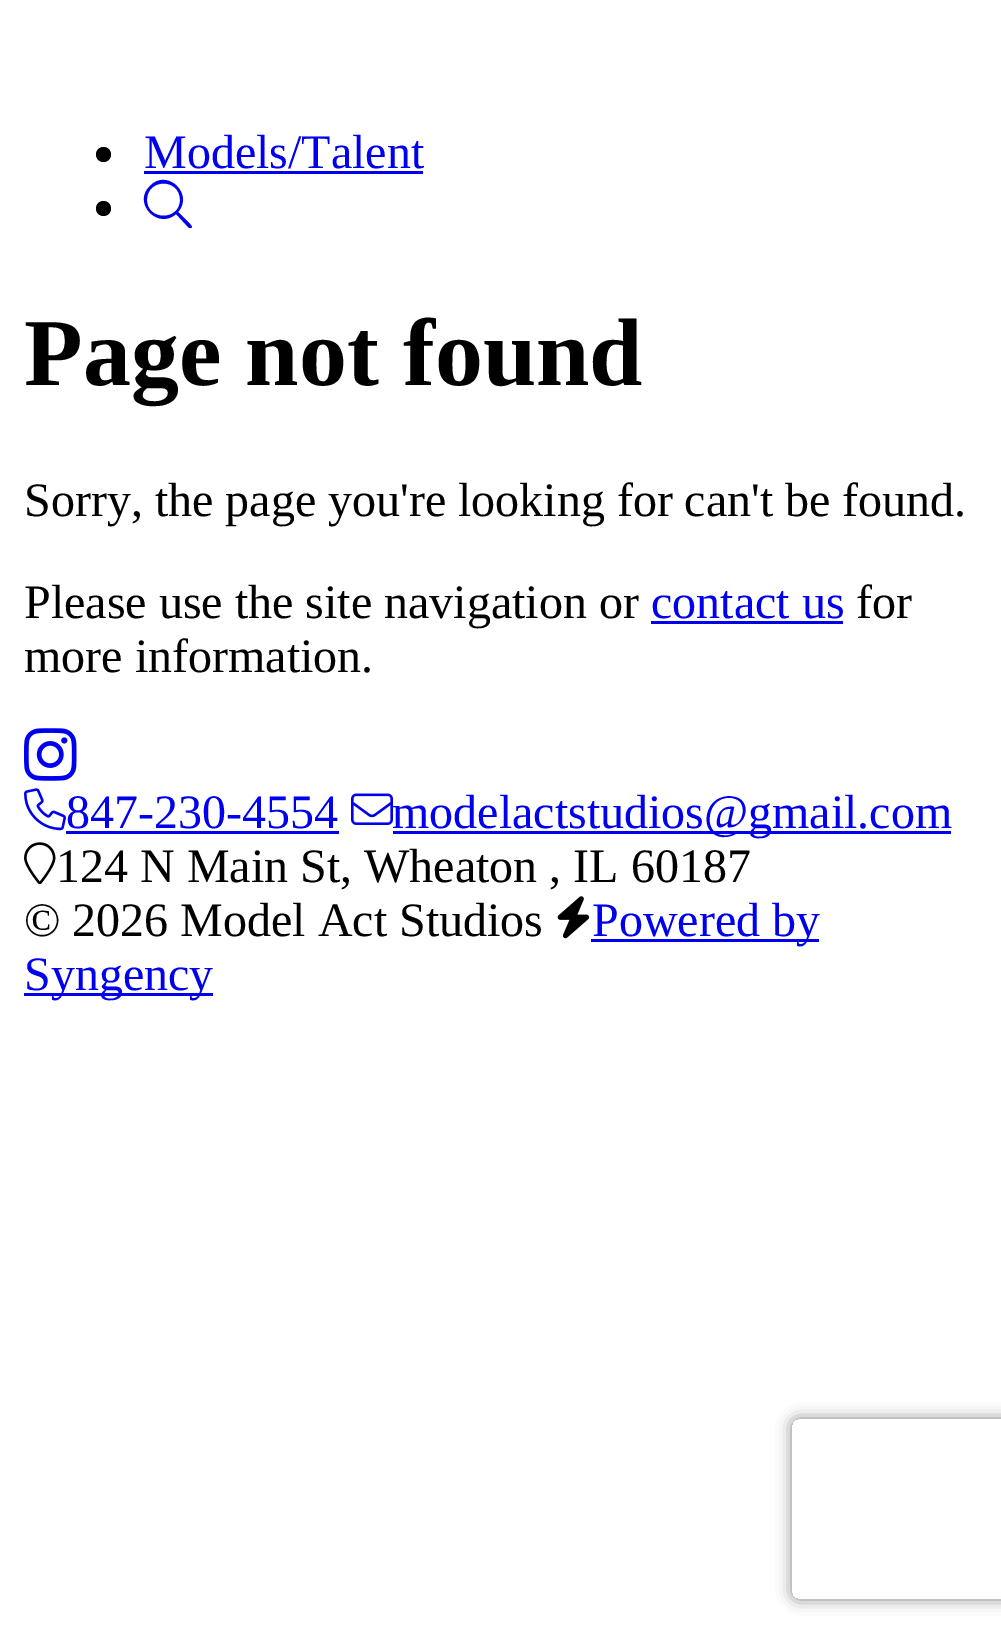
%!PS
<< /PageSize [1001 1639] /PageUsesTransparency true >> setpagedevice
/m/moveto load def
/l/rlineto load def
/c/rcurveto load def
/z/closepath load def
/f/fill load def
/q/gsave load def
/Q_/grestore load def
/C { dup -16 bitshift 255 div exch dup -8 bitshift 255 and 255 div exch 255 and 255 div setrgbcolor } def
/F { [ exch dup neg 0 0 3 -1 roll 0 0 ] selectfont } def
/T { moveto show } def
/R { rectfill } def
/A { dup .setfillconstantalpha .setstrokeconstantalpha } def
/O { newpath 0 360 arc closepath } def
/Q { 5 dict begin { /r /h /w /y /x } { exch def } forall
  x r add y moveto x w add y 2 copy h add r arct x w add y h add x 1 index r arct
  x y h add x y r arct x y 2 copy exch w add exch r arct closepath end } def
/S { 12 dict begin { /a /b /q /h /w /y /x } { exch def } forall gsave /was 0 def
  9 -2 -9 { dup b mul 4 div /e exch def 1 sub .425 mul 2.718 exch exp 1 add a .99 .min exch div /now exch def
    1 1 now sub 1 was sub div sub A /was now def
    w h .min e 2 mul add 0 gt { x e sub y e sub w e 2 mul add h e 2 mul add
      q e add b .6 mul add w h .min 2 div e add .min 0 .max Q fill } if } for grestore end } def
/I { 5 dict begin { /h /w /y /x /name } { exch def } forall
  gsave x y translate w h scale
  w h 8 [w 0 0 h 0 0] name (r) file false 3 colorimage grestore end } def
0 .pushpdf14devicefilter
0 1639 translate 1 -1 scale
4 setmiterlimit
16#FFFFFF C
0 0 1001 1639 R
16#000000 C
103.5 154.5 7.5 O f
/LiberationSerif-Regular 48 F
16#0000EE C
(Models/Talent) 144 168 T
144 171 279 3 R
16#000000 C
103.5 208.5 7.5 O f
16#0000EE C
180 200 m 0 -22 -33 -22 -33 0 c 0 21 33 21 33 0 c z 176 214 m -18 16 -44 -11 -26 -28 c 17 -18 44 8 28 26 c 2 2 14 13 14 15 c 0 1 -2 1 -3 1 c z f
/LiberationSerif-Bold 96 F
16#000000 C
(Page not found) 24 385 T
/LiberationSerif-Regular 48 F
(Sorry, the page you're looking for can't be found.) 24 516 T
(Please use the site navigation or) 24 618 T
16#0000EE C
(contact us) 651 618 T
651 621 192 3 R
16#000000 C
(for) 856 618 T
(more information.) 24 672 T
(1.rgb) 24 728 53 53 I
(2.rgb) 24 788 42 43 I
16#0000EE C
(847-230-4554) 66 828 T
66 831 273 3 R
(3.rgb) 351 793 42 32 I
393 831 558 3 R
(modelactstudios@gmail.com) 392 828 T
(4.rgb) 24 842 32 43 I
16#000000 C
(124 N Main St, Wheaton , IL 60187) 56 882 T
(© 2026 Model Act Studios) 24 936 T
(5.rgb) 557 896 33 43 I
16#0000EE C
591 939 228 3 R
(Powered by) 592 936 T
24 993 189 3 R
(Syngency) 24 990 T
q
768 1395 m 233 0 l 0 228 l -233 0 l z 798 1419 m 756 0 l 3.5 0 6 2.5 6 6 c 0 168 l 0 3.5 -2.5 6 -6 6 c -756 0 l -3.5 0 -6 -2.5 -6 -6 c 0 -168 l 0 -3.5 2.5 -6 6 -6 c z eoclip newpath
16#808080 C
792 1419 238 180 6 7.5 1 S
Q_
.poppdf14devicefilter showpage
